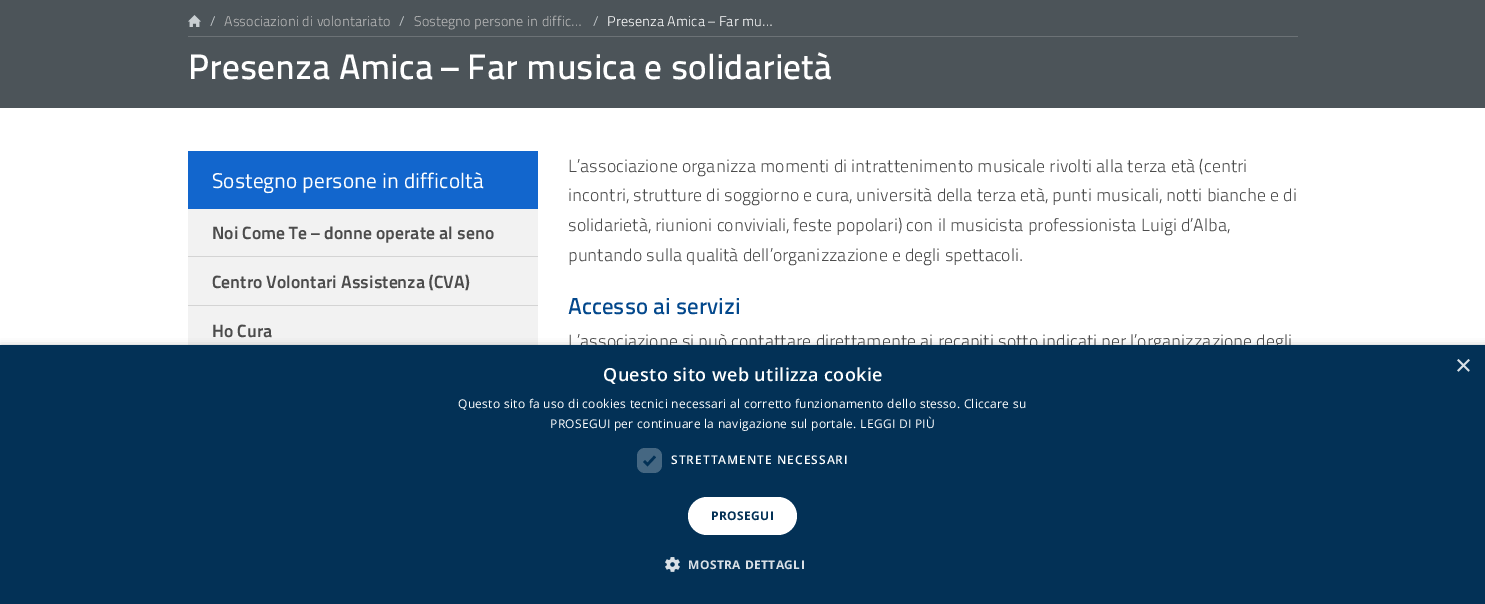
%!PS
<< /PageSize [1485 604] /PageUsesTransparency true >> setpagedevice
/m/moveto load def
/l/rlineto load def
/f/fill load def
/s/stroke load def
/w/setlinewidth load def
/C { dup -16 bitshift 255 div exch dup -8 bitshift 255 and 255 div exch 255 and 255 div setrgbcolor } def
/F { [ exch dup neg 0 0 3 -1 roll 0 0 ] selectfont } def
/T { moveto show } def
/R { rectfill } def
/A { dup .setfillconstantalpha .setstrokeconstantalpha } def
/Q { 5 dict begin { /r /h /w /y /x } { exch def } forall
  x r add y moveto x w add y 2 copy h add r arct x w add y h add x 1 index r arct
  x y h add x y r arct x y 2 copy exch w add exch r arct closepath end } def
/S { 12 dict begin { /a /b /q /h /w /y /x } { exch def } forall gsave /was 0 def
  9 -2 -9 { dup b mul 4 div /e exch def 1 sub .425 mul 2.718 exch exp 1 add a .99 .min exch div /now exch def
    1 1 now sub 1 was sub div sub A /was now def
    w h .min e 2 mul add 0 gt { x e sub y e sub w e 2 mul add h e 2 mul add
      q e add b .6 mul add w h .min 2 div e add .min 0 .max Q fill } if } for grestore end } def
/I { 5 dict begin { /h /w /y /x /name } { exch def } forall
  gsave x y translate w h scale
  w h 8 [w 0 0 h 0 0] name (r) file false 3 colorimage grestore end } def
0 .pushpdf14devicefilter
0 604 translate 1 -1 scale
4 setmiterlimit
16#FFFFFF C
0 0 1485 604 R
16#4C5459 C
0 0 1485 108 R
16#6C7276 C
188 36 1110 1 R
(1.rgb) 188 15 13 12 I
/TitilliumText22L-Light 13.6 F
16#CACFD2 C
(/) 209 26 T
16#B8B8B8 C
(Associazioni di volontariato) 224 26 T
16#CACFD2 C
(/) 398 26 T
16#B8B8B8 C
(Sostegno persone in diffic…) 414 26 T
16#CACFD2 C
(/) 592 26 T
16#FFFFFF C
(Presenza Amica – Far mu…) 607 26 T
/TitilliumText22L-Medium 34 F
(Presenza Amica – Far musica e solidarietà) 188 79 T
16#1266CD C
188 151 350 58 R
/TitilliumText22L-Regular 20.4 F
16#FFFFFF C
(Sostegno persone in difficoltà) 212 188 T
16#D4D4D4 C
188 256 350 1 R
16#F2F2F2 C
188 209 350 47 R
/TitilliumText22L-Bold 17 F
16#4C4C4C C
(Noi Come Te – donne operate al seno) 212 239 T
16#D4D4D4 C
188 305 350 1 R
16#F2F2F2 C
188 257 350 48 R
16#4C4C4C C
(Centro Volontari Assistenza \(CVA\)) 212 288 T
16#F2F2F2 C
188 306 350 39 R
16#4C4C4C C
(Ho Cura) 212 337 T
/TitilliumText22L-Light 17 F
(L’associazione organizza momenti di intrattenimento musicale rivolti alla terza età \(centri) 568 172 T
(incontri, strutture di soggiorno e cura, università della terza età, punti musicali, notti bianche e di) 568 201 T
(solidarietà, riunioni conviviali, feste popolari\) con il musicista professionista Luigi d’Alba,) 568 231 T
(puntando sulla qualità dell’organizzazione e degli spettacoli.) 568 261 T
/TitilliumText22L-Medium 22 F
16#03488C C
(Accesso ai servizi) 568 314 T
/TitilliumText22L-Light 17 F
16#4C4C4C C
(L’associazione si può contattare direttamente ai recapiti sotto indicati per l’organizzazione degli) 568 347 T
16#000000 C
1 347 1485 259 0 4 .35 S
16#033156 C
0 345 1485 259 R
/LiberationSans-Regular 29 F
16#D9E0E6 C
(×) 1455 375 T
/OpenSans-SemiBold 18 F
16#FFFFFF C
603 381 m .4 0 (Questo sito web utilizza cookie) ashow
/OpenSans-Regular 12 F
458 408 m .3 0 (Questo sito fa uso di cookies tecnici necessari al corretto funzionamento dello stesso. Cliccare su) ashow
550 428 m .3 0 (PROSEGUI per continuare la navigazione sul portale. LEGGI DI PIÙ) ashow
16#456782 C
637 448 25 25 8 Q f
16#033156 C
2.6 w
644 461 m 3.5 3.5 l 7.5 -8 l s
/OpenSans-SemiBold 12 F
16#FFFFFF C
671 464 m 1 0 (STRETTAMENTE NECESSARI) ashow
688 497 109 38 19 Q f
/OpenSans-Bold 12 F
16#033156 C
711 520 m .4 0 (PROSEGUI) ashow
(2.rgb) 665 557 15 15 I
16#D9E0E6 C
688 569 m .4 0 (MOSTRA DETTAGLI) ashow
.poppdf14devicefilter showpage
